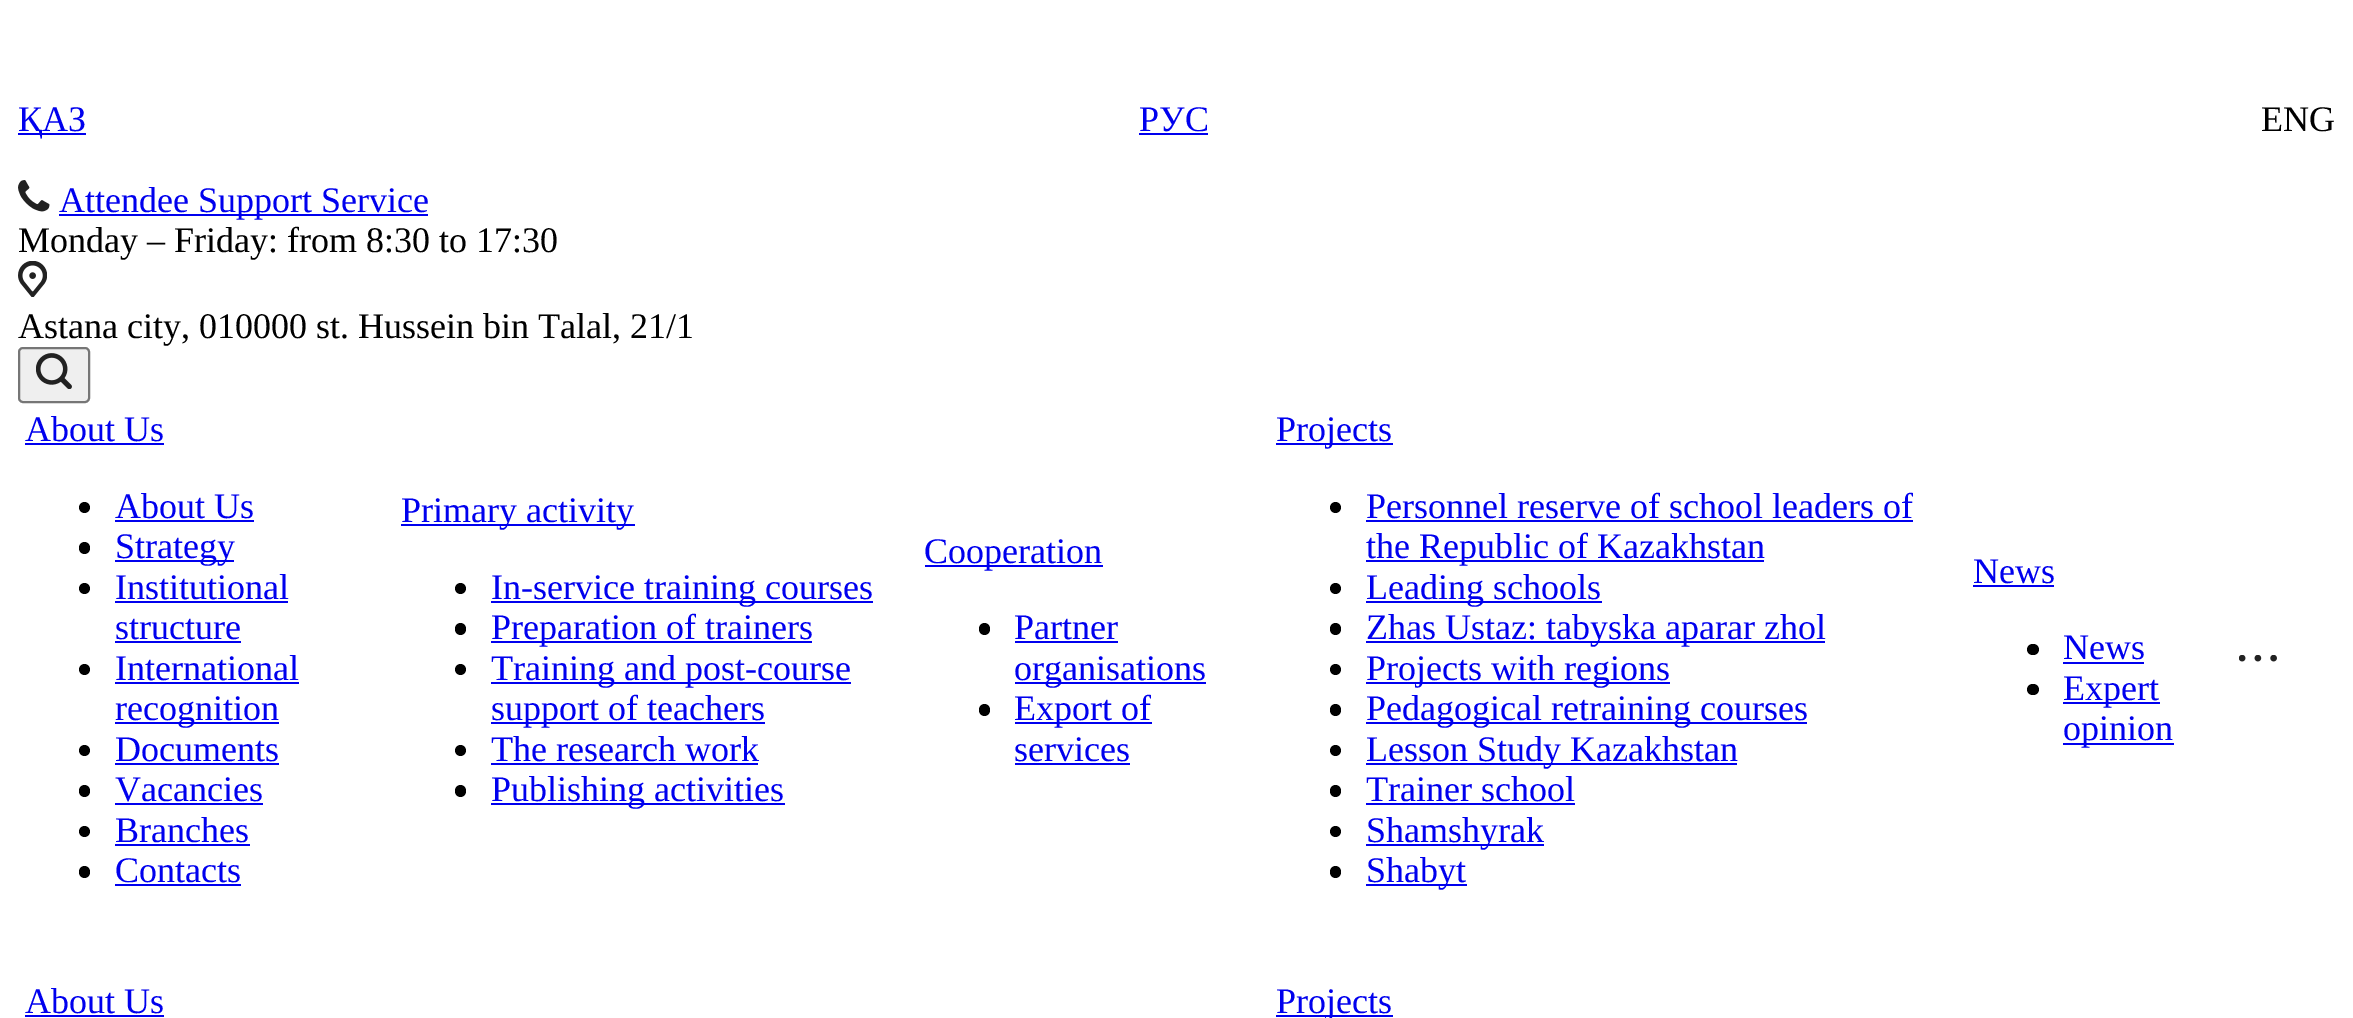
%!PS
<< /PageSize [2353 1018] >> setpagedevice
/f/fill load def
/s/stroke load def
/q/gsave load def
/Q_/grestore load def
/w/setlinewidth load def
/C { dup -16 bitshift 255 div exch dup -8 bitshift 255 and 255 div exch 255 and 255 div setrgbcolor } def
/F { [ exch dup neg 0 0 3 -1 roll 0 0 ] selectfont } def
/T { moveto show } def
/R { rectfill } def
/O { newpath 0 360 arc closepath } def
/Q { 5 dict begin { /r /h /w /y /x } { exch def } forall
  x r add y moveto x w add y 2 copy h add r arct x w add y h add x 1 index r arct
  x y h add x y r arct x y 2 copy exch w add exch r arct closepath end } def
/I { 5 dict begin { /h /w /y /x /name } { exch def } forall
  gsave x y translate w h scale
  w h 8 [w 0 0 h 0 0] name (r) file false 3 colorimage grestore end } def
0 1018 translate 1 -1 scale
4 setmiterlimit
16#FFFFFF C
0 0 2353 1018 R
16#0000EE C
18 133 68 2 R
/LiberationSerif-Regular 36 F
(ҚАЗ) 18 131 T
(РУС) 1139 131 T
1139 133 69 2 R
16#000000 C
(ENG) 2261 131 T
(1.rgb) 18 180 32 32 I
16#0000EE C
59 214 369 2 R
(Attendee Support Service) 59 212 T
16#000000 C
(Monday – Friday: from 8:30 to 17:30) 18 252 T
(2.rgb) 18 261 29 36 I
(Astana city, 010000 st. Hussein bin Talal, 21/1) 18 338 T
16#EFEFEF C
19 348 70 54 4 Q q f Q_
16#767676 C
2 w
s
(3.rgb) 36 353 36 36 I
16#0000EE C
(About Us) 25 441 T
25 443 139 2 R
16#000000 C
84.5 507.5 5.5 O f
16#0000EE C
(About Us) 115 518 T
115 520 139 2 R
16#000000 C
79 542 11 12 5.5 Q f
16#0000EE C
115 560 119 2 R
(Strategy) 115 558 T
16#000000 C
84.5 588.5 5.5 O f
16#0000EE C
(Institutional) 115 599 T
115 601 173 2 R
(structure) 115 639 T
115 641 126 2 R
16#000000 C
84.5 669.5 5.5 O f
16#0000EE C
(International) 115 680 T
115 682 184 2 R
115 722 164 2 R
(recognition) 115 720 T
16#000000 C
84.5 750.5 5.5 O f
16#0000EE C
(Documents) 115 761 T
115 763 164 2 R
16#000000 C
79 785 11 12 5.5 Q f
16#0000EE C
(Vacancies) 115 801 T
115 803 148 2 R
16#000000 C
84.5 831.5 5.5 O f
16#0000EE C
(Branches) 115 842 T
115 844 135 2 R
16#000000 C
79 866 11 12 5.5 Q f
16#0000EE C
(Contacts) 115 882 T
115 884 126 2 R
401 524 234 2 R
(Primary activity) 401 522 T
16#000000 C
460.5 588.5 5.5 O f
16#0000EE C
491 601 382 2 R
(In-service training courses) 491 599 T
16#000000 C
455 623 11 12 5.5 Q f
16#0000EE C
491 641 321 2 R
(Preparation of trainers) 491 639 T
16#000000 C
460.5 669.5 5.5 O f
16#0000EE C
491 682 360 2 R
(Training and post-course) 491 680 T
491 722 274 2 R
(support of teachers) 491 720 T
16#000000 C
460.5 750.5 5.5 O f
16#0000EE C
(The research work) 491 761 T
491 763 267 2 R
16#000000 C
455 785 11 12 5.5 Q f
16#0000EE C
491 803 294 2 R
(Publishing activities) 491 801 T
925 565 178 2 R
(Cooperation) 924 563 T
16#000000 C
979 623 11 12 5.5 Q f
16#0000EE C
(Partner) 1014 639 T
1015 641 103 2 R
1015 682 191 2 R
(organisations) 1014 680 T
16#000000 C
979 704 11 12 5.5 Q f
16#0000EE C
1015 722 137 2 R
(Export of) 1014 720 T
(services) 1014 761 T
1015 763 115 2 R
1276 443 117 2 R
(Projects) 1276 441 T
16#000000 C
1335.5 507.5 5.5 O f
16#0000EE C
(Personnel reserve of school leaders of) 1366 518 T
1366 520 547 2 R
1366 560 398 2 R
(the Republic of Kazakhstan) 1366 558 T
16#000000 C
1335.5 588.5 5.5 O f
16#0000EE C
1366 601 236 2 R
(Leading schools) 1366 599 T
16#000000 C
1330 623 11 12 5.5 Q f
16#0000EE C
1366 641 459 2 R
(Zhas Ustaz: tabyska aparar zhol) 1366 639 T
16#000000 C
1335.5 669.5 5.5 O f
16#0000EE C
1366 682 304 2 R
(Projects with regions) 1366 680 T
16#000000 C
1330 704 11 12 5.5 Q f
16#0000EE C
1366 722 441 2 R
(Pedagogical retraining courses) 1366 720 T
16#000000 C
1335.5 750.5 5.5 O f
16#0000EE C
1366 763 371 2 R
(Lesson Study Kazakhstan) 1366 761 T
16#000000 C
1330 785 11 12 5.5 Q f
16#0000EE C
(Trainer school) 1366 801 T
1366 803 209 2 R
16#000000 C
1335.5 831.5 5.5 O f
16#0000EE C
1366 844 178 2 R
(Shamshyrak) 1366 842 T
16#000000 C
1330 866 11 12 5.5 Q f
16#0000EE C
1366 884 101 2 R
(Shabyt) 1366 882 T
(News) 1973 583 T
1973 585 81 2 R
16#000000 C
2027 644 12 11 5.5 Q f
16#0000EE C
(News) 2063 659 T
2063 662 81 2 R
16#000000 C
2027 684 12 11 5.5 Q f
16#0000EE C
2063 702 97 2 R
(Expert) 2063 700 T
2063 743 111 2 R
(opinion) 2063 740 T
(4.rgb) 2239 655 38 7 I
(About Us) 25 1013 T
25 1015 139 2 R
1276 1015 117 2 R
(Projects) 1276 1013 T
showpage
